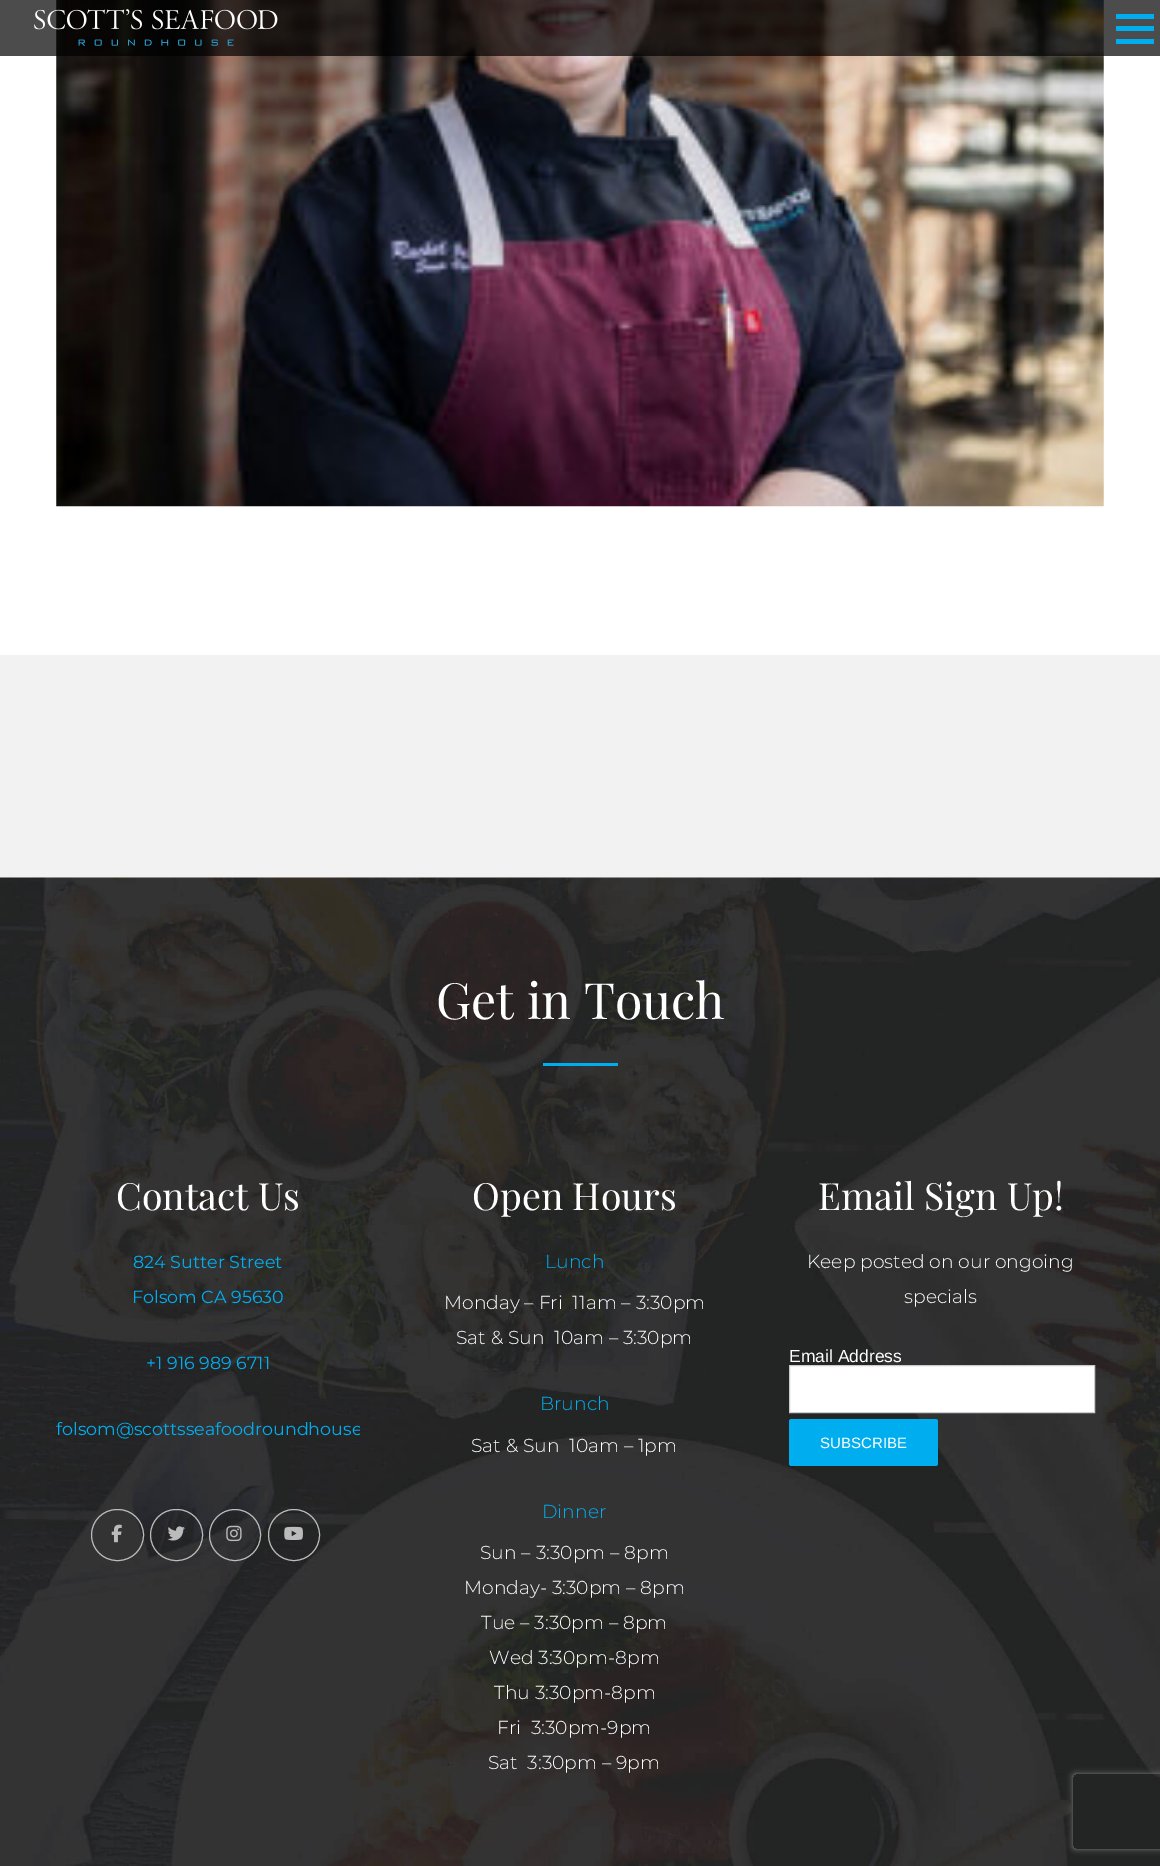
%!PS
<< /PageSize [1160 1866] /PageUsesTransparency true >> setpagedevice
/m/moveto load def
/l/rlineto load def
/c/rcurveto load def
/z/closepath load def
/f/fill load def
/s/stroke load def
/q/gsave load def
/Q_/grestore load def
/C { dup -16 bitshift 255 div exch dup -8 bitshift 255 and 255 div exch 255 and 255 div setrgbcolor } def
/F { [ exch dup neg 0 0 3 -1 roll 0 0 ] selectfont } def
/T { moveto show } def
/R { rectfill } def
/A { dup .setfillconstantalpha .setstrokeconstantalpha } def
/O { newpath 0 360 arc closepath } def
/Q { 5 dict begin { /r /h /w /y /x } { exch def } forall
  x r add y moveto x w add y 2 copy h add r arct x w add y h add x 1 index r arct
  x y h add x y r arct x y 2 copy exch w add exch r arct closepath end } def
/S { 12 dict begin { /a /b /q /h /w /y /x } { exch def } forall gsave /was 0 def
  9 -2 -9 { dup b mul 4 div /e exch def 1 sub .425 mul 2.718 exch exp 1 add a .99 .min exch div /now exch def
    1 1 now sub 1 was sub div sub A /was now def
    w h .min e 2 mul add 0 gt { x e sub y e sub w e 2 mul add h e 2 mul add
      q e add b .6 mul add w h .min 2 div e add .min 0 .max Q fill } if } for grestore end } def
/I { 5 dict begin { /h /w /y /x /name } { exch def } forall
  gsave x y translate w h scale
  w h 8 [w 0 0 h 0 0] name (r) file false 3 colorimage grestore end } def
0 .pushpdf14devicefilter
0 1866 translate 1 -1 scale
4 setmiterlimit
16#FFFFFF C
0 0 1160 1866 R
(2.rgb) 56 0 1048 507 I
0.7 A
16#000000 C
0 0 1160 56 R
1 A
(1.rgb) 34 9 244 37 I
16#00AEEF C
1116 26 38 5 R
1116 14 38 5 R
1116 39 38 5 R
16#F2F2F2 C
0 655 1160 223 R
(3.rgb) 0 877 1160 989 I
/PlayfairDisplay-Regular 50 F
16#FFFFFF C
(Get in Touch) 436 1019 T
16#00AEEF C
543 1063 75 3 R
/PlayfairDisplay-Regular 37.5 F
16#FFFFFF C
(Contact Us) 116 1210 T
/Montserrat-Regular 17.5 F
16#00AEEF C
(824 Sutter Street) 133 1268 T
(Folsom CA 95630) 132 1303 T
(+1 916 989 6711) 146 1369 T
q
56 1411 304 67 rectclip
(folsom@scottsseafoodroundhouse) 56 1435 T
Q_
16#BBBBBB C
91.5 1509.5 52 51 25.5 Q s
(4.rgb) 111 1524 11 19 I
150.5 1509.5 52 51 25.5 Q s
(5.rgb) 167 1526 18 15 I
235 1535 25.5 O s
(6.rgb) 226 1525 16 17 I
294 1535 25.5 O s
(7.rgb) 284 1526 19 14 I
/PlayfairDisplay-Regular 37.5 F
16#FFFFFF C
(Open Hours) 472 1210 T
/Montserrat-Light 18.75 F
16#00AEEF C
(Lunch) 545 1268 T
16#FFFFFF C
(Monday – Fri  11am – 3:30pm) 444 1309 T
(Sat & Sun  10am – 3:30pm) 456 1344 T
16#00AEEF C
(Brunch) 540 1410 T
16#FFFFFF C
(Sat & Sun  10am – 1pm) 471 1452 T
16#00AEEF C
(Dinner) 542 1518 T
16#FFFFFF C
(Sun – 3:30pm – 8pm) 480 1559 T
(Monday- 3:30pm – 8pm) 464 1594 T
(Tue – 3:30pm – 8pm) 481 1629 T
(Wed 3:30pm-8pm) 489 1664 T
(Thu 3:30pm-8pm) 494 1699 T
(Fri  3:30pm-9pm) 497 1734 T
(Sat  3:30pm – 9pm) 488 1769 T
/PlayfairDisplay-Regular 37.5 F
(Email Sign Up!) 818 1210 T
/Montserrat-Light 18.75 F
(Keep posted on our ongoing) 807 1268 T
(specials) 904 1303 T
/LiberationSans-Regular 17.5 F
(Email Address) 789 1362 T
789.5 1365.5 m 305 0 l 0 47 l -305 0 l z q f Q_
16#CCCCCC C
s
16#00AEEF C
789 1419 149 47 2.5 Q f
/LiberationSans-Regular 15 F
16#FFFFFF C
(SUBSCRIBE) 820 1448 T
q
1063 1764 m 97 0 l 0 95 l -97 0 l z 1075.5 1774 m 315 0 l 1.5 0 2.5 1 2.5 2.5 c 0 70 l 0 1.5 -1 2.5 -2.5 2.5 c -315 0 l -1.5 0 -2.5 -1 -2.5 -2.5 c 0 -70 l 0 -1.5 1 -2.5 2.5 -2.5 c z eoclip newpath
16#808080 C
1073 1774 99 75 2.5 3 1 S
Q_
.poppdf14devicefilter showpage
